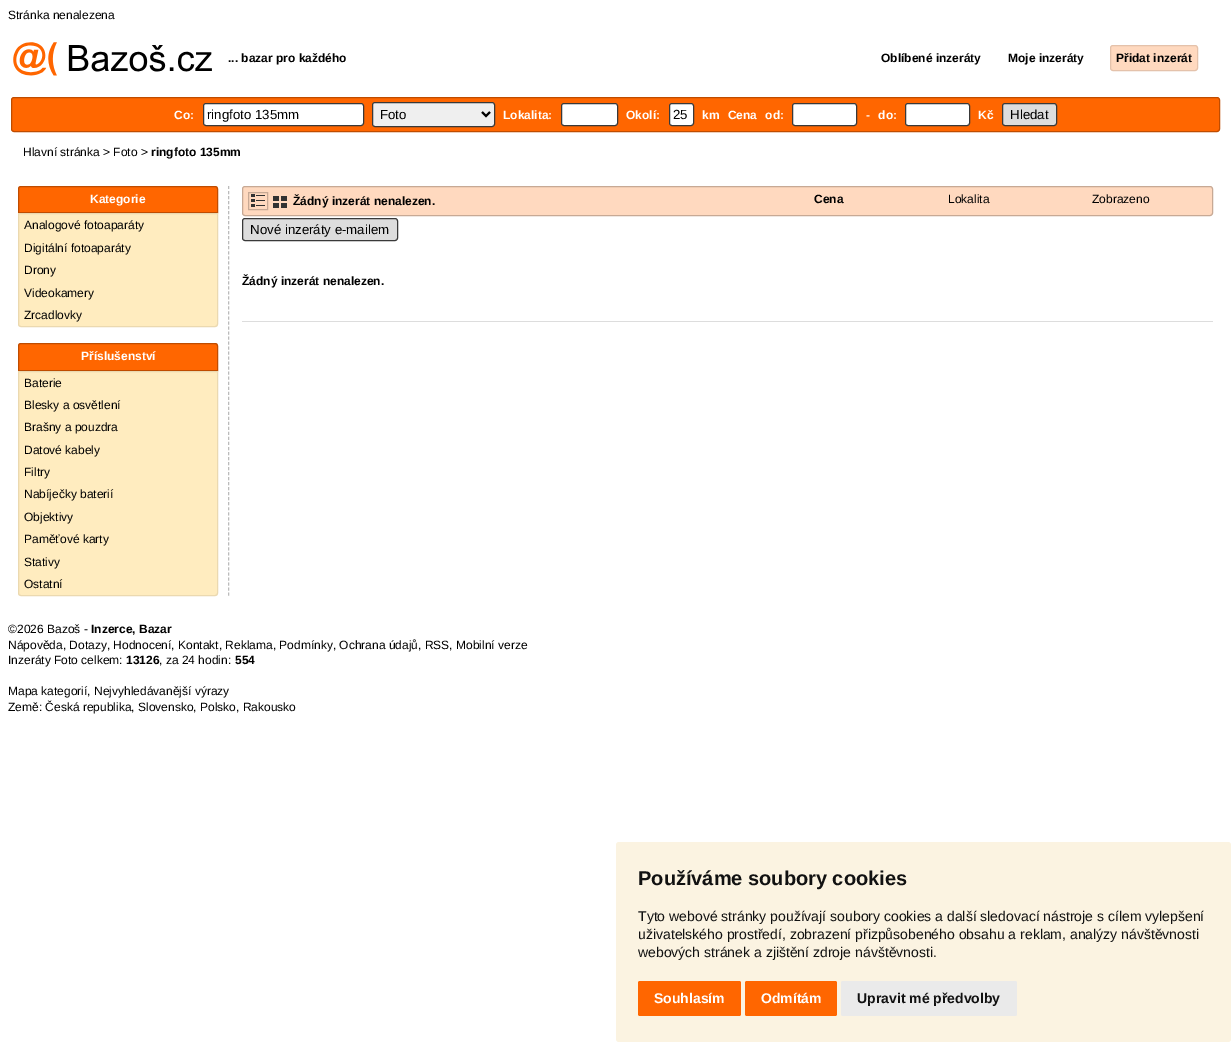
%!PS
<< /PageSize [1231 1042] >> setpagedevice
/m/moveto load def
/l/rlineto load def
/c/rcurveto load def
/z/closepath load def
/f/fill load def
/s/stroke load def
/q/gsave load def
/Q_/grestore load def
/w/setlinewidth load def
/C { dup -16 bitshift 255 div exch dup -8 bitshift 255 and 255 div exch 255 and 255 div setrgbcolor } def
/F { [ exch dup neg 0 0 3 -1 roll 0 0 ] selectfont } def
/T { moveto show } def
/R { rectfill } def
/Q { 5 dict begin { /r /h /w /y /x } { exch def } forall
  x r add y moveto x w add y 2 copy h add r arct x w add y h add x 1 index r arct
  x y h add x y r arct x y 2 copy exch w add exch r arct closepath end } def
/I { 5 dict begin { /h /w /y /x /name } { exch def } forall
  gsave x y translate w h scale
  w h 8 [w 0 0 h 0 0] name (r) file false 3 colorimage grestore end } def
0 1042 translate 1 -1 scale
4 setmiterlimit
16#FFFFFF C
0 0 1231 1042 R
/LiberationSans-Regular 12 F
16#000000 C
(Stránka nenalezena) 8 19 T
(1.rgb) 13 42 199 34 I
/LiberationSans-Bold 12 F
(... bazar pro každého) 228 62 T
(Oblíbené inzeráty) 881 62 T
(Moje inzeráty) 1008 62 T
16#FFD9BF C
1110.5 45.5 87 25 2.5 Q q f Q_
16#E4C2AB C
s
16#000000 C
(Přidat inzerát) 1116 62 T
16#FF6600 C
11.5 97.5 1208 34 2.5 Q q f Q_
16#BF4C00 C
s
16#FFFFFF C
(Co:) 174 119 T
203.5 103.5 160 22 2.5 Q q f Q_
16#393939 C
s
/LiberationSans-Regular 13.25 F
16#000000 C
(ringfoto 135mm) 207 119 T
16#EFEFEF C
372.5 102.5 122 24 2.5 Q q f Q_
16#393939 C
s
16#000000 C
2 w
482 112 m 4 4 l 4 -4 l s
(Foto) 380 119 T
/LiberationSans-Bold 12 F
16#FFFFFF C
(Lokalita:) 503 119 T
561.5 103.5 56 22 2.5 Q q f Q_
16#393939 C
1 w
s
16#FFFFFF C
(Okolí:) 626 119 T
669.5 103.5 24 22 2.5 Q q f Q_
16#393939 C
s
/LiberationSans-Regular 13.25 F
16#000000 C
(25) 673 119 T
/LiberationSans-Bold 12 F
16#FFFFFF C
702 119 m 5 0 32 (km Cena od:) widthshow
792.5 103.5 64 22 2.5 Q q f Q_
16#393939 C
s
16#FFFFFF C
866 119 m 5 0 32 (- do:) widthshow
905.5 103.5 64 22 2.5 Q q f Q_
16#393939 C
s
16#FFFFFF C
(Kč) 978 119 T
16#DDDDDD C
1002.5 103.5 54 22 2.5 Q q f Q_
16#393939 C
s
/LiberationSans-Regular 13.25 F
16#000000 C
(Hledat) 1010 119 T
/LiberationSans-Regular 12 F
(Hlavní stránka > Foto >) 23 156 T
/LiberationSans-Bold 12 F
(ringfoto 135mm) 151 156 T
16#BBBBBB C
[3 2.02] 0 setdash
228.5 186 m 0 410 l s
16#FF6600 C
21 186.5 m 194 0 l 1.5 0 2.5 1 2.5 2.5 c 0 23.5 l -199 0 l 0 -23.5 l 0 -1.5 1 -2.5 2.5 -2.5 c z q f Q_
16#BF4C00 C
[] 0 setdash
s
16#FFFFFF C
(Kategorie) 90 203 T
16#FFECBF C
18.5 213.5 m 199 0 l 0 110.5 l 0 1.5 -1 2.5 -2.5 2.5 c -194 0 l -1.5 0 -2.5 -1 -2.5 -2.5 c z q f Q_
16#EBD9B0 C
s
/LiberationSans-Regular 12 F
16#000000 C
(Analogové fotoaparáty) 24 229 T
(Digitální fotoaparáty) 24 252 T
(Drony) 24 274 T
(Videokamery) 24 297 T
(Zrcadlovky) 24 319 T
16#FF6600 C
21 343.5 m 194 0 l 1.5 0 2.5 1 2.5 2.5 c 0 24.5 l -199 0 l 0 -24.5 l 0 -1.5 1 -2.5 2.5 -2.5 c z q f Q_
16#BF4C00 C
s
/LiberationSans-Bold 12 F
16#FFFFFF C
(Příslušenství) 81 360 T
16#FFECBF C
18.5 371.5 m 199 0 l 0 221.5 l 0 1.5 -1 2.5 -2.5 2.5 c -194 0 l -1.5 0 -2.5 -1 -2.5 -2.5 c z q f Q_
16#EBD9B0 C
s
/LiberationSans-Regular 12 F
16#000000 C
(Baterie) 24 387 T
(Blesky a osvětlení) 24 409 T
(Brašny a pouzdra) 24 431 T
(Datové kabely) 24 454 T
(Filtry) 24 476 T
(Nabíječky baterií) 24 498 T
(Objektivy) 24 521 T
(Paměťové karty) 24 543 T
(Stativy) 24 566 T
(Ostatní) 24 588 T
16#FFD9BF C
242.5 186.5 970 29 2.5 Q q f Q_
16#C7A995 C
s
248.5 192.5 19 17 rectstroke
(2.rgb) 251 194 14 13 I
(3.rgb) 273 196 14 12 I
/LiberationSans-Bold 12 F
16#000000 C
(Žádný inzerát nenalezen.) 293 205 T
(Cena) 814 203 T
/LiberationSans-Regular 12 F
(Lokalita) 948 203 T
(Zobrazeno) 1092 203 T
16#DDDDDD C
242.5 218.5 155 22 2.5 Q q f Q_
16#393939 C
s
/LiberationSans-Regular 13.25 F
16#000000 C
(Nové inzeráty e-mailem) 250 234 T
/LiberationSans-Bold 12 F
(Žádný inzerát nenalezen.) 242 285 T
16#DDDDDD C
242 321 971 1 R
/LiberationSans-Regular 12 F
16#000000 C
(©2026 Bazoš -) 8 633 T
/LiberationSans-Bold 12 F
(Inzerce, Bazar) 91 633 T
/LiberationSans-Regular 12 F
(Nápověda, Dotazy, Hodnocení, Kontakt, Reklama, Podmínky, Ochrana údajů, RSS, Mobilní verze) 8 649 T
(Inzeráty Foto celkem:) 8 664 T
/LiberationSans-Bold 12 F
(13126) 126 664 T
/LiberationSans-Regular 12 F
(, za 24 hodin:) 159 664 T
/LiberationSans-Bold 12 F
(554) 235 664 T
/LiberationSans-Regular 12 F
(Mapa kategorií, Nejvyhledávanější výrazy) 8 695 T
(Země: Česká republika, Slovensko, Polsko, Rakousko) 8 711 T
16#FBF3E1 C
616 842 615 200 3 Q f
/LiberationSans-Bold 20 F
16#111111 C
(Používáme soubory cookies) 638 885 T
/LiberationSans-Regular 14 F
(Tyto webové stránky používají soubory cookies a další sledovací nástroje s cílem vylepšení) 638 921 T
(uživatelského prostředí, zobrazení přizpůsobeného obsahu a reklam, analýzy návštěvnosti) 638 939 T
(webových stránek a zjištění zdroje návštěvnosti.) 638 957 T
16#FF6600 C
638 981 103 35 2 Q f
/LiberationSans-Bold 14 F
16#FFFFFF C
(Souhlasím) 654 1003 T
16#FF6600 C
745 981 92 35 2 Q f
16#FFFFFF C
(Odmítám) 761 1003 T
16#EAEAEA C
841 981 176 35 2 Q f
16#111111 C
(Upravit mé předvolby) 857 1003 T
showpage
